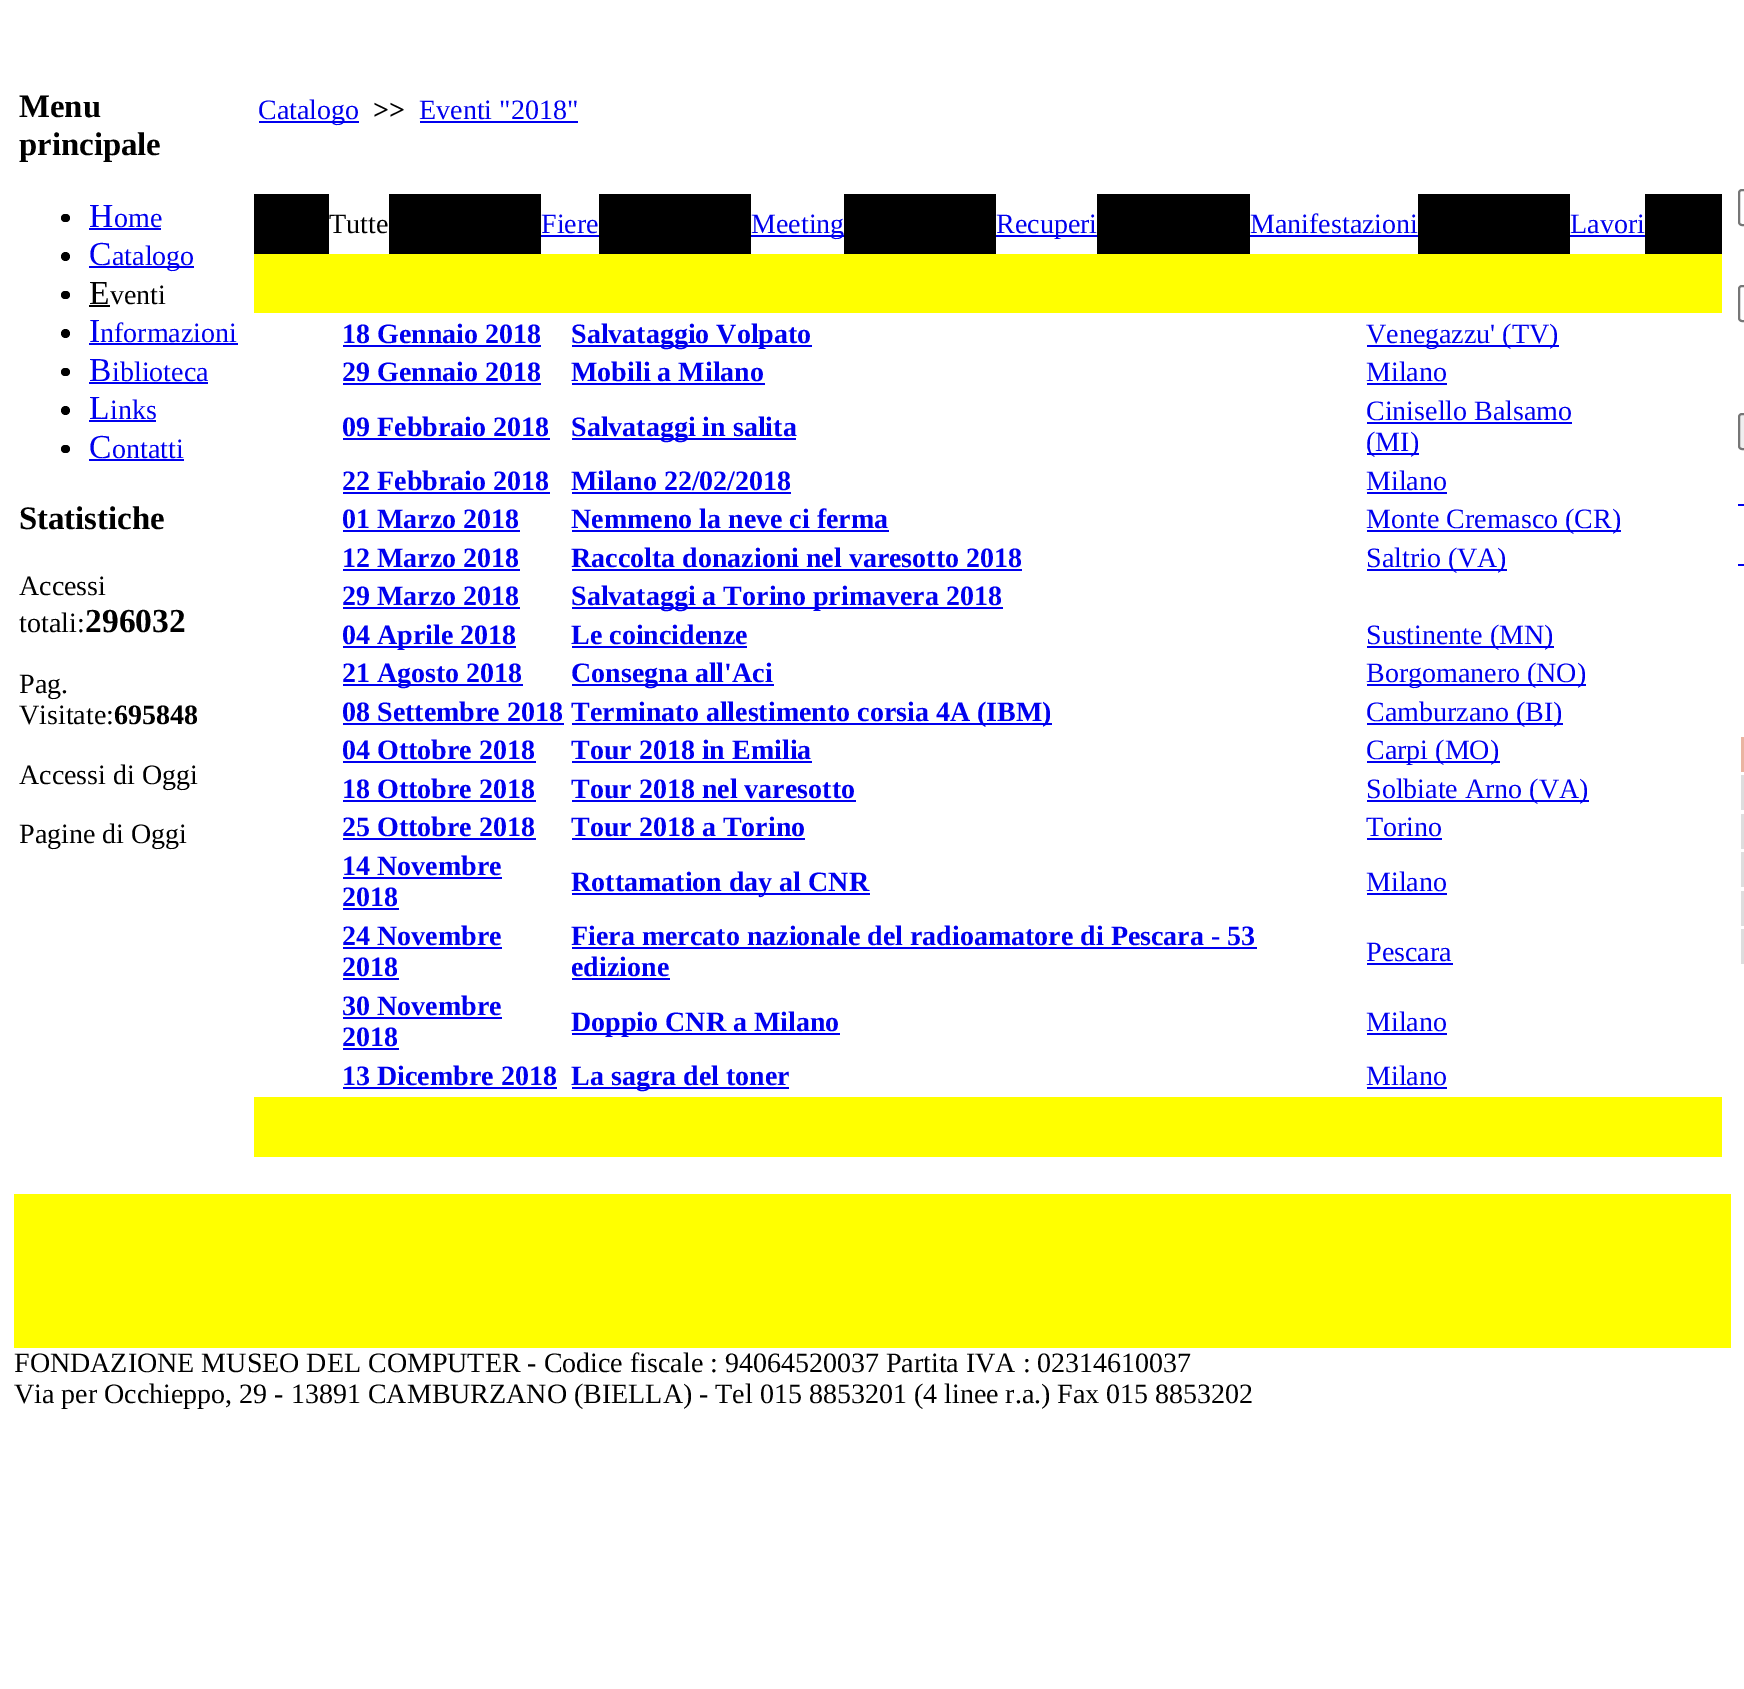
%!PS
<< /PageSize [1744 1689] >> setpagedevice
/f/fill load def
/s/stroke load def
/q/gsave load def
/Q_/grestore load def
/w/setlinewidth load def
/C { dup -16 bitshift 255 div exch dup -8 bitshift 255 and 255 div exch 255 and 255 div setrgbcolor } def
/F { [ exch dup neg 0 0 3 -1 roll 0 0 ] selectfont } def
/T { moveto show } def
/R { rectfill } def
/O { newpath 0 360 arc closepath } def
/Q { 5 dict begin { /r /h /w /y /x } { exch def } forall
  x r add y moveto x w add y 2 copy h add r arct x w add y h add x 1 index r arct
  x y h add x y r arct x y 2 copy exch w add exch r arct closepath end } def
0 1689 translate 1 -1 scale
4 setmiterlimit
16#FFFFFF C
0 0 1744 1689 R
/LiberationSerif-Bold 32.75 F
16#000000 C
(Menu) 19 117 T
(principale) 19 155 T
61 214 9 8 4 Q f
/LiberationSerif-Regular 33.5 F
16#0000EE C
(H) 89 227 T
/LiberationSerif-Regular 28 F
(ome) 114 227 T
89 228 72 2 R
16#000000 C
65.5 256.5 4.5 O f
/LiberationSerif-Regular 33.5 F
16#0000EE C
(C) 89 265 T
89 266 105 2 R
/LiberationSerif-Regular 28 F
(atalogo) 112 265 T
16#000000 C
61 291 9 8 4 Q f
/LiberationSerif-Regular 33.5 F
(E) 89 304 T
89 305 21 2 R
/LiberationSerif-Regular 28 F
(venti) 110 304 T
65.5 333.5 4.5 O f
/LiberationSerif-Regular 33.5 F
16#0000EE C
(I) 89 342 T
/LiberationSerif-Regular 28 F
(nformazioni) 100 342 T
89 343 149 2 R
16#000000 C
61 368 9 8 4 Q f
/LiberationSerif-Regular 33.5 F
16#0000EE C
(B) 89 381 T
/LiberationSerif-Regular 28 F
(iblioteca) 112 381 T
89 382 119 2 R
16#000000 C
65.5 410.5 4.5 O f
/LiberationSerif-Regular 33.5 F
16#0000EE C
(L) 89 419 T
/LiberationSerif-Regular 28 F
(inks) 110 419 T
89 420 67 2 R
16#000000 C
61 445 9 8 4 Q f
/LiberationSerif-Regular 33.5 F
16#0000EE C
(C) 89 458 T
/LiberationSerif-Regular 28 F
(ontatti) 112 458 T
89 459 95 2 R
/LiberationSerif-Bold 32.75 F
16#000000 C
(Statistiche) 19 529 T
/LiberationSerif-Regular 28 F
(Accessi) 19 595 T
(totali:) 19 632 T
/LiberationSerif-Bold 33.5 F
(296032) 85 632 T
/LiberationSerif-Regular 28 F
(Pag.) 19 693 T
(Visitate:) 19 724 T
/LiberationSerif-Bold 28 F
(695848) 114 724 T
/LiberationSerif-Regular 28 F
(Accessi di Oggi) 19 784 T
(Pagine di Oggi) 19 843 T
16#0000EE C
259 121 100 2 R
(Catalogo) 258 119 T
/LiberationSerif-Bold 28 F
16#000000 C
(>>) 373 119 T
/LiberationSerif-Regular 28 F
16#0000EE C
(Eventi "2018") 419 119 T
420 121 158 2 R
16#000000 C
254 194 75 60 R
(Tutte) 329 233 T
389 194 152 60 R
16#0000EE C
(Fiere) 541 233 T
541 235 58 2 R
16#000000 C
599 194 152 60 R
16#0000EE C
751 235 93 2 R
(Meeting) 751 233 T
16#000000 C
844 194 152 60 R
16#0000EE C
996 235 101 2 R
(Recuperi) 996 233 T
16#000000 C
1097 194 153 60 R
16#0000EE C
(Manifestazioni) 1250 233 T
1250 235 168 2 R
16#000000 C
1418 194 152 60 R
16#0000EE C
(Lavori) 1570 233 T
1570 235 75 2 R
16#000000 C
1645 194 77 60 R
16#FFFF00 C
254 254 1468 59 R
/LiberationSerif-Bold 28 F
16#0000EE C
(18 Gennaio 2018) 342 343 T
343 345 198 2 R
572 345 240 2 R
(Salvataggio Volpato) 571 343 T
1367 345 192 2 R
/LiberationSerif-Regular 28 F
(Venegazzu' \(TV\)) 1366 343 T
/LiberationSerif-Bold 28 F
(29 Gennaio 2018) 342 381 T
343 383 198 2 R
(Mobili a Milano) 571 381 T
572 383 193 2 R
/LiberationSerif-Regular 28 F
(Milano) 1366 381 T
1367 383 80 2 R
/LiberationSerif-Bold 28 F
(09 Febbraio 2018) 342 436 T
343 438 207 2 R
572 438 224 2 R
(Salvataggi in salita) 571 436 T
/LiberationSerif-Regular 28 F
(Cinisello Balsamo) 1366 420 T
1367 422 205 2 R
1367 453 52 2 R
(\(MI\)) 1366 451 T
/LiberationSerif-Bold 28 F
(22 Febbraio 2018) 342 490 T
343 492 207 2 R
(Milano 22/02/2018) 571 490 T
572 492 219 2 R
/LiberationSerif-Regular 28 F
(Milano) 1366 490 T
1367 492 80 2 R
/LiberationSerif-Bold 28 F
(01 Marzo 2018) 342 528 T
343 530 177 2 R
(Nemmeno la neve ci ferma) 571 528 T
572 530 317 2 R
1367 530 254 2 R
/LiberationSerif-Regular 28 F
(Monte Cremasco \(CR\)) 1366 528 T
/LiberationSerif-Bold 28 F
(12 Marzo 2018) 342 567 T
343 569 177 2 R
(Raccolta donazioni nel varesotto 2018) 571 567 T
572 569 450 2 R
1367 569 140 2 R
/LiberationSerif-Regular 28 F
(Saltrio \(VA\)) 1366 567 T
/LiberationSerif-Bold 28 F
(29 Marzo 2018) 342 605 T
343 607 177 2 R
572 607 431 2 R
(Salvataggi a Torino primavera 2018) 571 605 T
343 646 173 2 R
(04 Aprile 2018) 342 644 T
(Le coincidenze) 571 644 T
572 646 175 2 R
1367 646 187 2 R
/LiberationSerif-Regular 28 F
(Sustinente \(MN\)) 1366 644 T
343 684 180 2 R
/LiberationSerif-Bold 28 F
(21 Agosto 2018) 342 682 T
572 684 202 2 R
(Consegna all'Aci) 571 682 T
1367 684 219 2 R
/LiberationSerif-Regular 28 F
(Borgomanero \(NO\)) 1366 682 T
/LiberationSerif-Bold 28 F
(08 Settembre 2018) 342 721 T
343 723 221 2 R
572 723 480 2 R
(Terminato allestimento corsia 4A \(IBM\)) 571 721 T
1367 723 196 2 R
/LiberationSerif-Regular 28 F
(Camburzano \(BI\)) 1366 721 T
/LiberationSerif-Bold 28 F
(04 Ottobre 2018) 342 759 T
343 761 193 2 R
(Tour 2018 in Emilia) 571 759 T
572 761 240 2 R
1367 761 133 2 R
/LiberationSerif-Regular 28 F
(Carpi \(MO\)) 1366 759 T
/LiberationSerif-Bold 28 F
(18 Ottobre 2018) 342 798 T
343 800 193 2 R
(Tour 2018 nel varesotto) 571 798 T
572 800 284 2 R
1367 800 222 2 R
/LiberationSerif-Regular 28 F
(Solbiate Arno \(VA\)) 1366 798 T
/LiberationSerif-Bold 28 F
(25 Ottobre 2018) 342 836 T
343 838 193 2 R
(Tour 2018 a Torino) 571 836 T
572 838 233 2 R
/LiberationSerif-Regular 28 F
(Torino) 1366 836 T
1367 838 75 2 R
/LiberationSerif-Bold 28 F
(14 Novembre) 342 875 T
343 877 159 2 R
(2018) 342 906 T
343 908 56 2 R
572 893 298 2 R
(Rottamation day al CNR) 571 891 T
/LiberationSerif-Regular 28 F
(Milano) 1366 891 T
1367 893 80 2 R
/LiberationSerif-Bold 28 F
(24 Novembre) 342 945 T
343 947 159 2 R
(2018) 342 976 T
343 978 56 2 R
(Fiera mercato nazionale del radioamatore di Pescara - 53) 571 945 T
572 947 685 2 R
(edizione) 571 976 T
572 978 98 2 R
/LiberationSerif-Regular 28 F
(Pescara) 1366 961 T
1367 963 86 2 R
/LiberationSerif-Bold 28 F
(30 Novembre) 342 1015 T
343 1017 159 2 R
(2018) 342 1046 T
343 1048 56 2 R
572 1033 268 2 R
(Doppio CNR a Milano) 571 1031 T
/LiberationSerif-Regular 28 F
(Milano) 1366 1031 T
1367 1033 80 2 R
/LiberationSerif-Bold 28 F
(13 Dicembre 2018) 342 1085 T
343 1087 214 2 R
572 1087 217 2 R
(La sagra del toner) 571 1085 T
/LiberationSerif-Regular 28 F
(Milano) 1366 1085 T
1367 1087 80 2 R
16#FFFF00 C
254 1097 1468 60 R
16#767676 C
2 w
1739 190 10 35 3 Q s
1739 286 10 35 3 Q s
16#EFEFEF C
1739 414 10 35 3 Q q f Q_
16#767676 C
s
16#0000EE C
1738 504 6 2 R
1738 564 6 2 R
16#E9B4A1 C
1741 737 3 35 R
16#DDDDDD C
1741 775 3 35 R
1741 814 3 35 R
1741 852 3 35 R
1741 891 3 35 R
1741 929 3 35 R
16#FFFF00 C
14 1194 1717 154 R
16#000000 C
(FONDAZIONE MUSEO DEL COMPUTER - Codice fiscale : 94064520037 Partita IVA : 02314610037) 14 1372 T
(Via per Occhieppo, 29 - 13891 CAMBURZANO \(BIELLA\) - Tel 015 8853201 \(4 linee r.a.\) Fax 015 8853202) 14 1403 T
showpage
